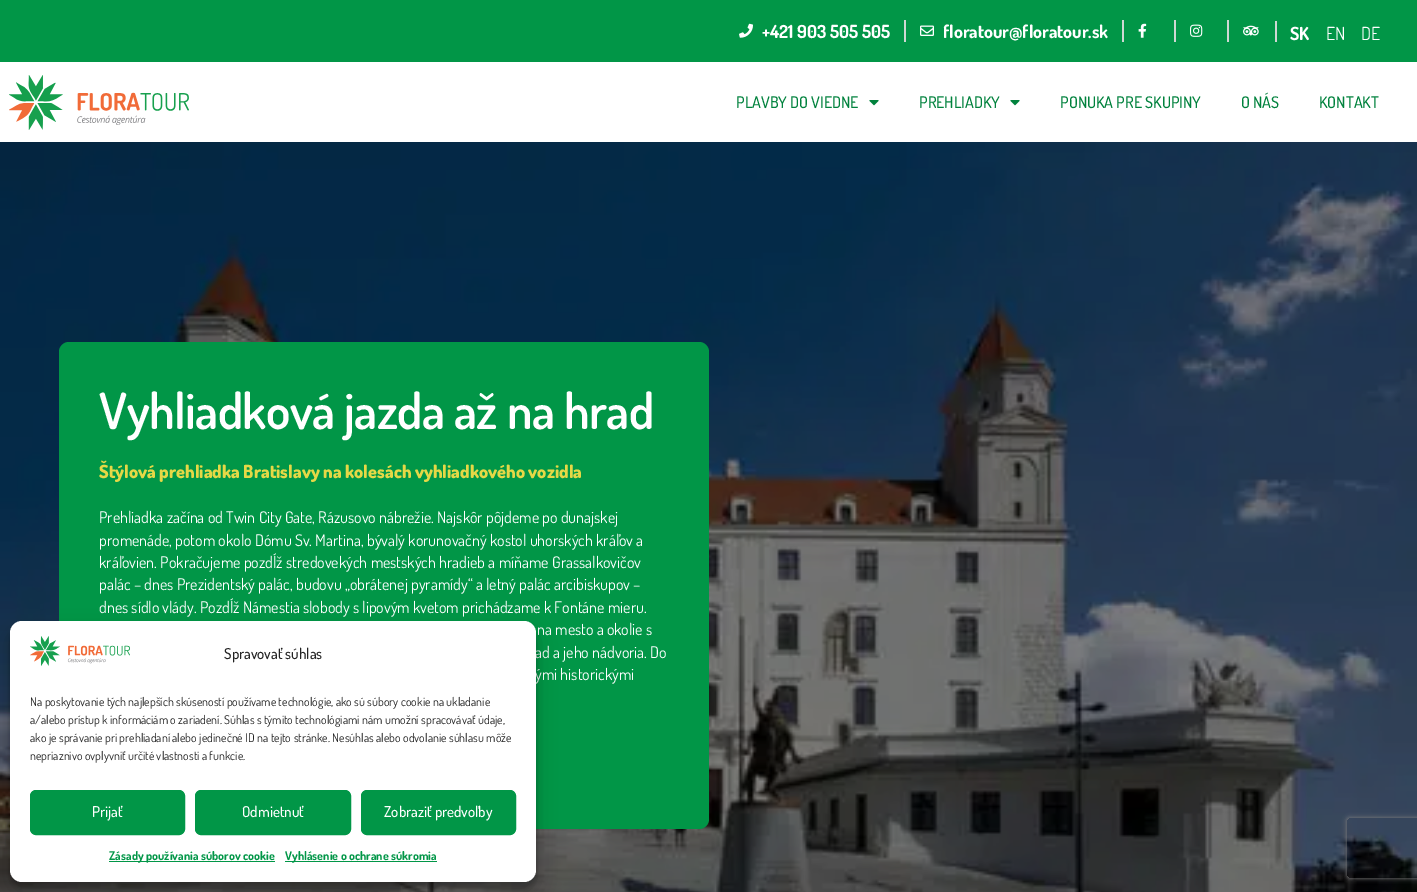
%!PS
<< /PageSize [1417 892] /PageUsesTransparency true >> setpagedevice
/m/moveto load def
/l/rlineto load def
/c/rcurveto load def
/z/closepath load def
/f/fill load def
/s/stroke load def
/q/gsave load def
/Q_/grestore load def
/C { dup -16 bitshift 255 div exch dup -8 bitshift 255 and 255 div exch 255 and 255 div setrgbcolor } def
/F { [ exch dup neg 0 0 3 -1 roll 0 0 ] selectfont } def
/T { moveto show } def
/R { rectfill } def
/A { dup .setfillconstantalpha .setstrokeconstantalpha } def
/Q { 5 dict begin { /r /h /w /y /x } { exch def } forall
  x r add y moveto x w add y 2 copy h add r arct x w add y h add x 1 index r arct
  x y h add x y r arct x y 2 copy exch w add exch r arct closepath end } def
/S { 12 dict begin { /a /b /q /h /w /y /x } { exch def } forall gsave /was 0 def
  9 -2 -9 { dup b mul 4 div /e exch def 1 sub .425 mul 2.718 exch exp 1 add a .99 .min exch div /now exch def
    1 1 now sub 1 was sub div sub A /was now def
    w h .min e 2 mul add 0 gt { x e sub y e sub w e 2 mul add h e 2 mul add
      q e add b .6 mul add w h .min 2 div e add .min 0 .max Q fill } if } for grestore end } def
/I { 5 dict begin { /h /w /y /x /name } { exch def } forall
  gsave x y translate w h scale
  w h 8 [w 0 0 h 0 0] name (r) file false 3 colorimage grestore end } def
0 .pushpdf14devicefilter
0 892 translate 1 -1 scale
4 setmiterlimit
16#FFFFFF C
0 0 1417 892 R
16#019647 C
0 0 1417 62 R
(1.rgb) 739 23 14 15 I
/Dosis-Bold 18 F
16#FFFFFF C
(+421 903 505 505) 762 38 T
16#CED8D3 C
904 20 2 22 R
(2.rgb) 920 25 14 11 I
16#FFFFFF C
(floratour@floratour.sk) 943 38 T
16#CED8D3 C
1122 20 2 22 R
(3.rgb) 1138 23 9 15 I
1174 20 2 22 R
(4.rgb) 1190 24 13 13 I
1227 20 2 22 R
(5.rgb) 1243 25 16 11 I
1275 21 2 21 R
16#FFFFFF C
(SK) 1290 40 T
/Dosis-Regular 18 F
(EN) 1326 40 T
(DE) 1361 40 T
(6.rgb) 9 75 180 55 I
/Dosis-Medium 16 F
16#01823D C
(PLAVBY DO VIEDNE) 736 108 T
(7.rgb) 869 100 10 6 I
(PREHLIADKY) 919 108 T
(7.rgb) 1010 100 10 6 I
(PONUKA PRE SKUPINY) 1060 108 T
(O NÁS) 1241 108 T
(KONTAKT) 1319 108 T
(8.rgb) 0 142 1417 750 I
16#019647 C
59 342 650 487 10 Q f
/Dosis-SemiBold 50 F
16#FFFFFF C
99 429 m -.5 0 (Vyhliadková jazda až na hrad) ashow
/Dosis-ExtraBold 18 F
16#E5D846 C
(Štýlová prehliadka Bratislavy na kolesách vyhliadkového vozidla) 99 478 T
/Dosis-Regular 16 F
16#FFFFFF C
(Prehliadka začína od Twin City Gate, Rázusovo nábrežie. Najskôr pôjdeme po dunajskej) 99 523 T
(promenáde, potom okolo Dómu Sv. Martina, bývalý korunovačný kostol uhorských kráľov a) 99 546 T
(kráľovien. Pokračujeme pozdĺž stredovekých mestských hradieb a míňame Grassalkovičov) 99 568 T
(palác – dnes Prezidentský palác, budovu „obrátenej pyramídy“ a letný palác arcibiskupov –) 99 590 T
(dnes sídlo vlády. Pozdĺž Námestia slobody s lipovým kvetom prichádzame k Fontáne mieru.) 99 613 T
(na mesto a okolie s) 537 635 T
(ad a jeho nádvoria. Do) 535 658 T
(ými historickými) 535 680 T
16#000000 C
10 627 526 261 12 3 .23 S
10 631 526 261 12 10 .19 S
16#FFFFFF C
10 621 526 261 12 Q f
(9.rgb) 30 636 100 30 I
/Dosis-Medium 15 F
16#222222 C
(Spravovať súhlas) 224 659 T
/Dosis-Regular 12 F
(Na poskytovanie tých najlepších skúseností používame technológie, ako sú súbory cookie na ukladanie) 30 706 T
(a/alebo prístup k informáciám o zariadení. Súhlas s týmito technológiami nám umožní spracovávať údaje,) 30 724 T
(ako je správanie pri prehliadaní alebo jedinečné ID na tejto stránke. Nesúhlas alebo odvolanie súhlasu môže) 30 742 T
(nepriaznivo ovplyvniť určité vlastnosti a funkcie.) 30 760 T
16#019647 C
30.5 790.5 154 44 5.5 Q q f Q_
s
/Dosis-Medium 15 F
16#FFFFFF C
(Prijať) 92 817 T
16#019647 C
195.5 790.5 155 44 5.5 Q q f Q_
s
16#FFFFFF C
(Odmietnuť) 242 817 T
16#019647 C
361.5 790.5 154 44 5.5 Q q f Q_
s
16#FFFFFF C
(Zobraziť predvoľby) 384 817 T
16#019647 C
109 861 166 1 R
/Dosis-Bold 12 F
(Zásady používania súborov cookie) 109 860 T
285 861 152 1 R
(Vyhlásenie o ochrane súkromia) 285 860 T
q
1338 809 m 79 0 l 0 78 l -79 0 l z 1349 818 m 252 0 l 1 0 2 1 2 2 c 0 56 l 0 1 -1 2 -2 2 c -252 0 l -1 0 -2 -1 -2 -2 c 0 -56 l 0 -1 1 -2 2 -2 c z eoclip newpath
16#808080 C
1347 818 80 60 2 2.5 1 S
Q_
.poppdf14devicefilter showpage
